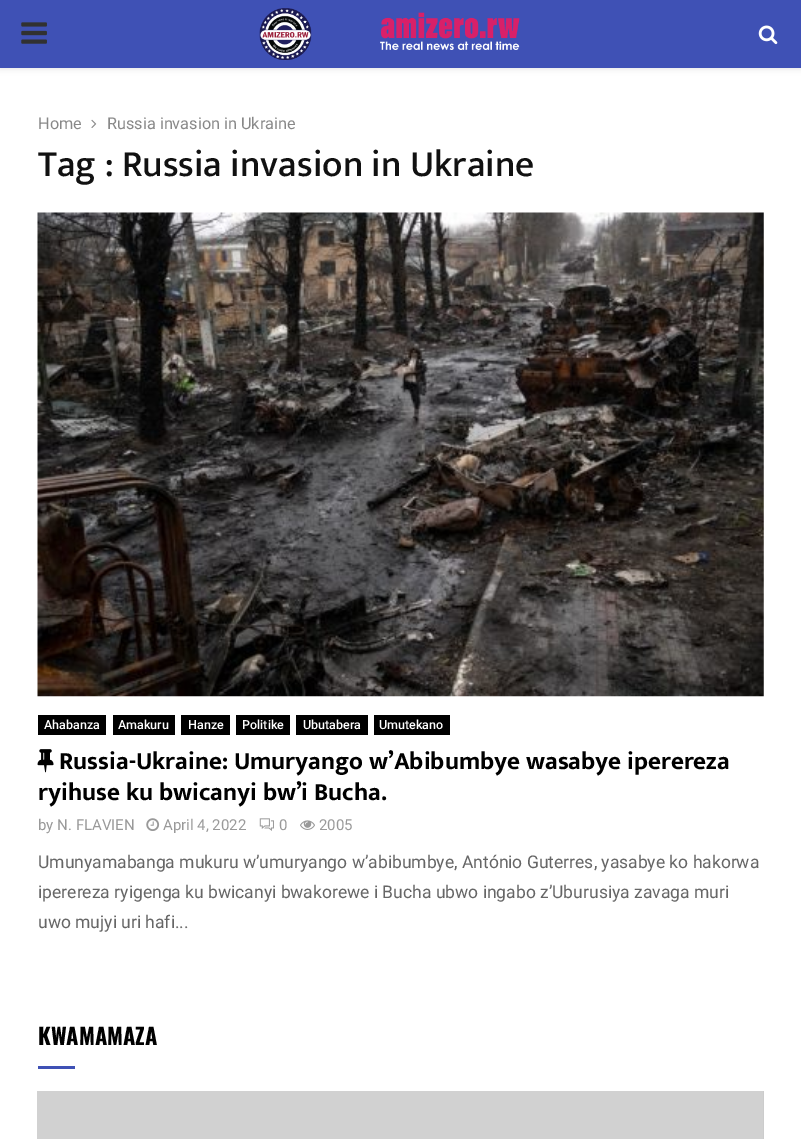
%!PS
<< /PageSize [801 1139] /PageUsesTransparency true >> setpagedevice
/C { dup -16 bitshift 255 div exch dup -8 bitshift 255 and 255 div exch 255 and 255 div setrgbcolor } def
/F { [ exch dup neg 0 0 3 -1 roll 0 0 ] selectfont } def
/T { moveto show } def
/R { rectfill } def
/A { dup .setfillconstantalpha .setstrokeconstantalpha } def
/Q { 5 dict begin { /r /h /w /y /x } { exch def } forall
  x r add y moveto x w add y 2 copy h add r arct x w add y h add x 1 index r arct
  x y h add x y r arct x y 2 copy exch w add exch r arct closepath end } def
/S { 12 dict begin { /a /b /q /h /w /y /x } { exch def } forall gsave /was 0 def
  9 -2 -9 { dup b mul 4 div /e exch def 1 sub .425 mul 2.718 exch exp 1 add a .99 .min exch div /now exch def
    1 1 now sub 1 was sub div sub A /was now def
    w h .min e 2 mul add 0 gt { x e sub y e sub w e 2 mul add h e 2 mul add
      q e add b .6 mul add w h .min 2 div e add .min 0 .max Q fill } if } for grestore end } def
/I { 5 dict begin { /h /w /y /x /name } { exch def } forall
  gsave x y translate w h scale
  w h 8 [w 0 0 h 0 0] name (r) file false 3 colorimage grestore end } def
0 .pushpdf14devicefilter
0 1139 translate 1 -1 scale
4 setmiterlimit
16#FFFFFF C
0 0 801 1139 R
16#BEBEBE C
0 1 801 68 0 3 .46 S
16#3F51B5 C
0 0 801 68 R
(1.rgb) 21 22 26 22 I
(2.rgb) 259 8 261 53 I
(3.rgb) 758 25 20 20 I
/Roboto-Regular 16.25 F
16#888888 C
(Home) 38 129 T
(4.rgb) 91 119 6 9 I
(Russia invasion in Ukraine) 107 129 T
/MuktaVaani-Medium 37.5 F
16#111111 C
(Tag : Russia invasion in Ukraine) 38 176 T
(5.rgb) 37 212 727 485 I
16#000000 C
38 715 68 20 R
/Roboto-Medium 12.5 F
16#FFFFFF C
(Ahabanza) 44 729 T
16#000000 C
113 715 62 20 R
16#FFFFFF C
(Amakuru) 118 729 T
16#000000 C
181 715 49 20 R
16#FFFFFF C
(Hanze) 188 729 T
16#000000 C
236 715 54 20 R
16#FFFFFF C
(Politike) 242 729 T
16#000000 C
296 715 72 20 R
16#FFFFFF C
(Ubutabera) 303 729 T
16#000000 C
374 715 76 20 R
16#FFFFFF C
(Umutekano) 379 729 T
(6.rgb) 37 749 17 24 I
/MuktaVaani-Bold 25 F
16#000000 C
(Russia-Ukraine: Umuryango w’Abibumbye wasabye iperereza) 59 769 T
(ryihuse ku bwicanyi bw’i Bucha.) 38 800 T
/Roboto-Regular 15 F
16#999999 C
(by N. FLAVIEN) 38 830 T
(7.rgb) 146 818 14 13 I
(April 4, 2022) 163 830 T
(8.rgb) 259 818 15 13 I
(0) 279 830 T
(9.rgb) 300 820 15 10 I
(2005) 319 830 T
/Roboto-Regular 17.5 F
16#666666 C
(Umunyamabanga mukuru w’umuryango w’abibumbye, António Guterres, yasabye ko hakorwa) 38 868 T
(iperereza ryigenga ku bwicanyi bwakorewe i Bucha ubwo ingabo z’Uburusiya zavaga muri) 38 898 T
(uwo mujyi uri hafi...) 38 928 T
/Oswald-Bold 22.5 F
16#000000 C
(KWAMAMAZA) 38 1045 T
16#3F51B5 C
38 1066 37 3 R
16#CCCCCC C
763 1091 1 48 R
16#D1D1D1 C
37 1091 726 48 R
.poppdf14devicefilter showpage
